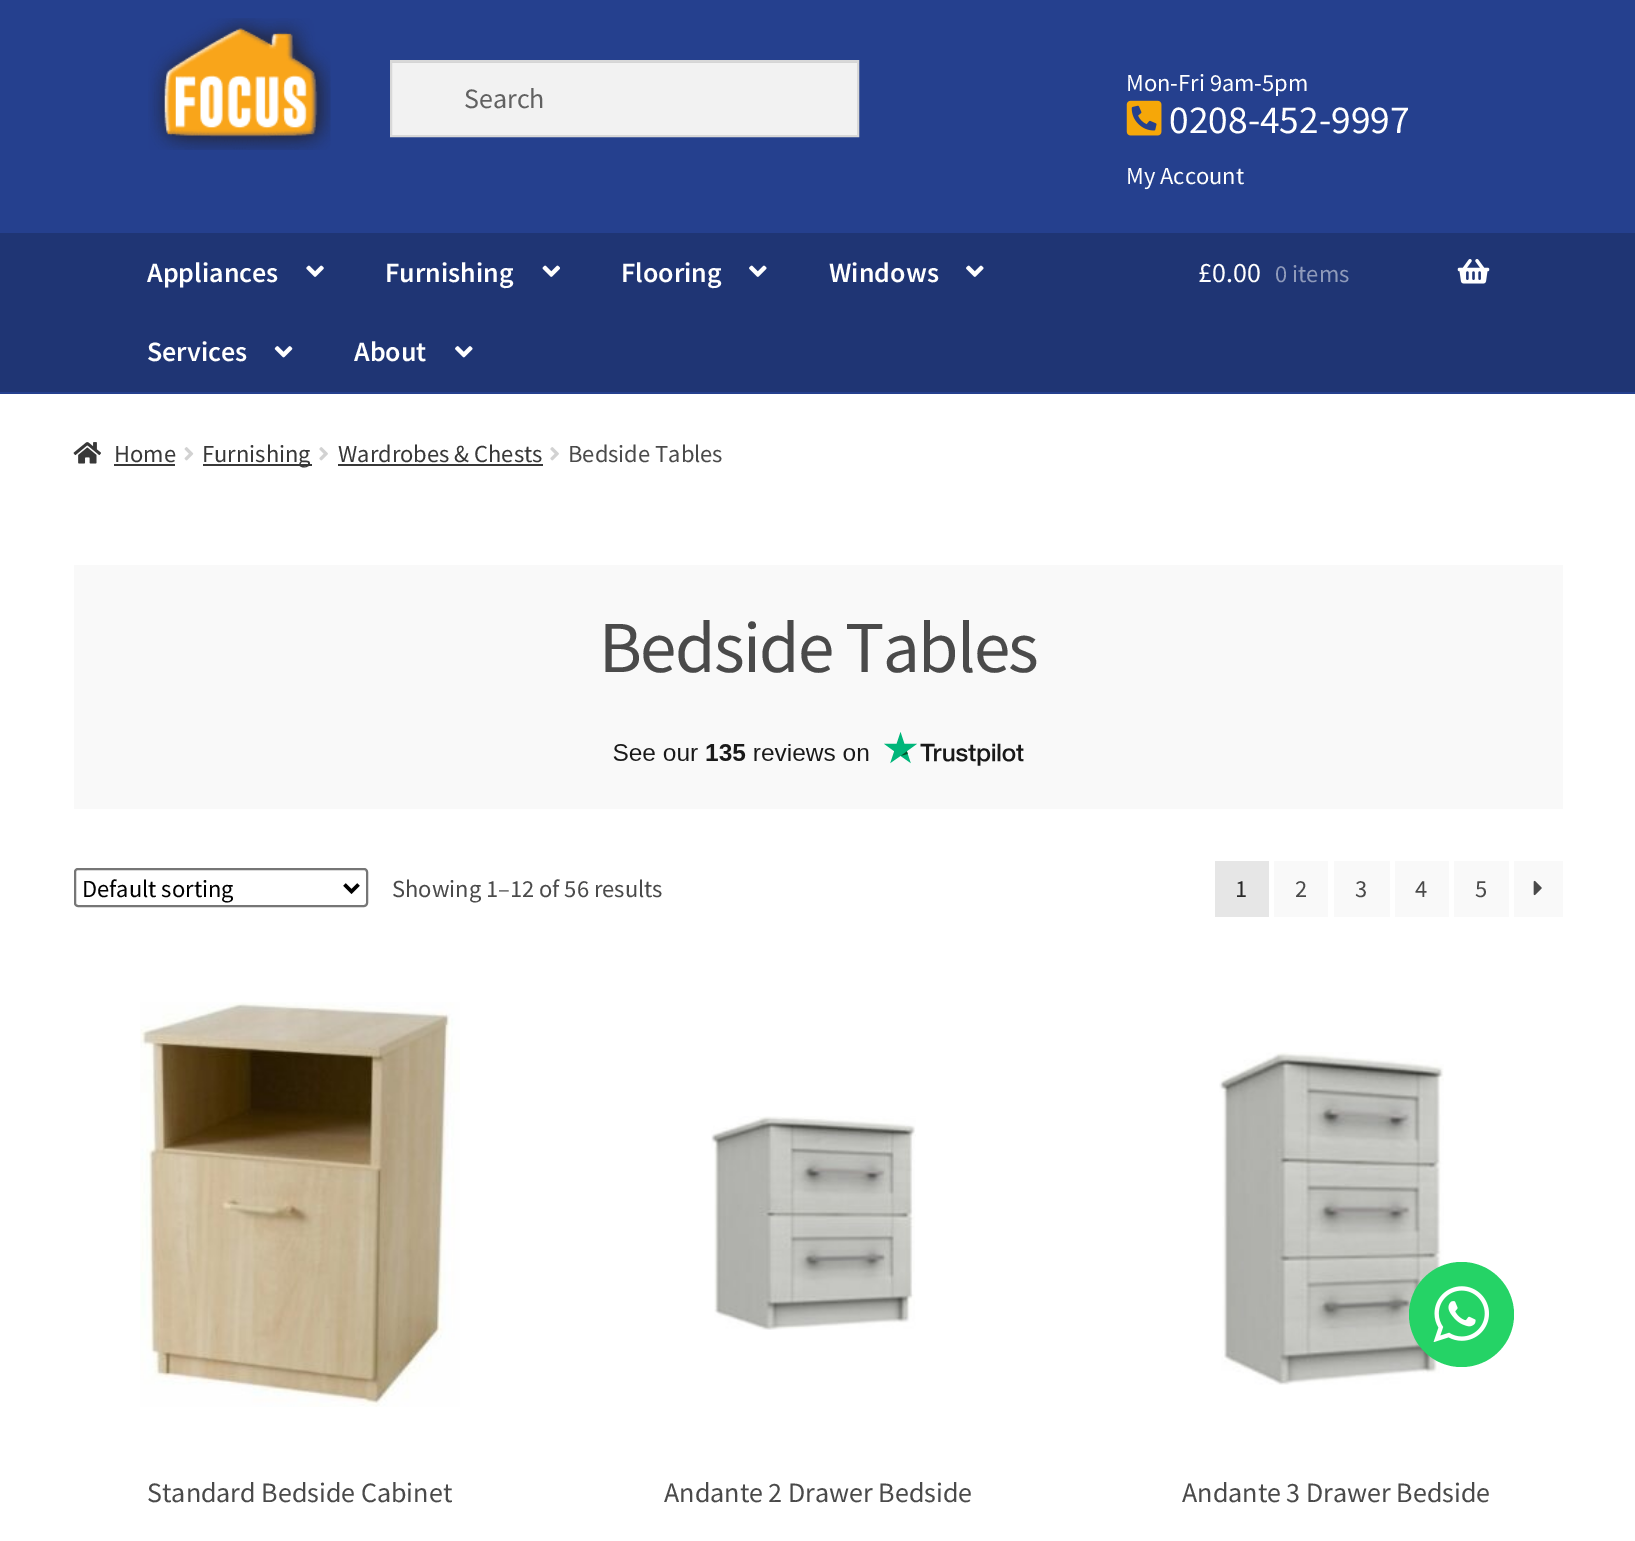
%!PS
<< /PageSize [1635 1541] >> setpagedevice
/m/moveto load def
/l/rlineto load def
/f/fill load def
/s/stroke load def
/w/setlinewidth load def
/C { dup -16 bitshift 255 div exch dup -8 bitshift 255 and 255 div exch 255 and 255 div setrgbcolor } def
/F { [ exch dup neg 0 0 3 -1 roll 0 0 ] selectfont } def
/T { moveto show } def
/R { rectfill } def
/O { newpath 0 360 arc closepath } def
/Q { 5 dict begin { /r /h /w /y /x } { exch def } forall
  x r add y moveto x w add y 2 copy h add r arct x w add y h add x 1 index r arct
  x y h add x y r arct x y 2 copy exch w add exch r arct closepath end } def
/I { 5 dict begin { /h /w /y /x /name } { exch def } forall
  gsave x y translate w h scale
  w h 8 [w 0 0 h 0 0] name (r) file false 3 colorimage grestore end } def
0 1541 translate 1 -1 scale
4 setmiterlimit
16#FFFFFF C
0 0 1635 1541 R
16#25408E C
0 0 1635 394 R
(1.rgb) 148 18 183 132 I
16#F2F2F2 C
392 63 465 72 R
16#D4D4D4 C
392 62 466 1 R
16#D8D8D8 C
2 w
391 61 467 75 rectstroke
/SourceSansPro-Regular 28 F
16#616161 C
(Search) 464 108 T
/SourceSansPro-Regular 24.5 F
16#FFFFFF C
(Mon-Fri 9am-5pm) 1126 91 T
(2.rgb) 1126 100 36 36 I
/SourceSansPro-Regular 39.5 F
(0208-452-9997) 1169 133 T
/SourceSansPro-Regular 24.5 F
(My Account) 1126 184 T
16#1F3574 C
0 233 1635 159 R
/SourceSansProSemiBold-SemiBold 28 F
16#FFFFFF C
(Appliances) 147 282 T
(3.rgb) 306 265 18 12 I
(Furnishing) 385 282 T
(4.rgb) 542 265 18 12 I
(Flooring) 621 282 T
(5.rgb) 749 265 18 12 I
(Windows) 829 282 T
(5.rgb) 966 265 18 12 I
(Services) 147 361 T
(6.rgb) 274 346 19 12 I
(About) 354 361 T
(7.rgb) 455 346 18 12 I
/SourceSansPro-Regular 28 F
(£0.00) 1198 282 T
/SourceSansPro-Regular 24.5 F
16#8F9ABA C
(0 items) 1275 282 T
(8.rgb) 1457 259 33 25 I
(9.rgb) 73 442 28 22 I
16#383838 C
(Home) 114 462 T
114 464 61 2 R
(10.rgb) 184 447 10 14 I
203 464 109 2 R
(Furnishing) 202 462 T
(11.rgb) 319 447 9 14 I
(Wardrobes & Chests) 338 462 T
338 464 205 2 R
(11.rgb) 550 447 9 14 I
16#4A4A4A C
(Bedside Tables) 568 462 T
16#F9F9F9 C
74 565 1489 244 R
/SourceSansPro-Regular 73.25 F
16#4A4A4A C
599 672 m -1.75 0 (Bedside Tables) ashow
(12.rgb) 613 732 411 34 I
16#767676 C
75 869 292 37 3 Q s
16#000000 C
3.5 w
344.5 884.5 m 7 7 l 7 -7 l s
/SourceSansPro-Regular 24.5 F
(Default sorting) 82 897 T
16#4A4A4A C
(Showing 1–12 of 56 results) 392 897 T
16#E6E6E6 C
1215 861 54 56 R
16#292929 C
(1) 1235 897 T
16#F9F9F9 C
1274 861 54 56 R
16#4A4A4A C
(2) 1295 897 T
16#F9F9F9 C
1334 861 56 56 R
16#4A4A4A C
(3) 1355 897 T
16#F9F9F9 C
1395 861 54 56 R
16#4A4A4A C
(4) 1415 897 T
16#F9F9F9 C
1454 861 55 56 R
16#4A4A4A C
(5) 1475 897 T
16#F9F9F9 C
1514 861 49 56 R
(13.rgb) 1533 880 9 16 I
(14.rgb) 140 1002 320 405 I
/SourceSansPro-Regular 28 F
16#4A4A4A C
(Standard Bedside Cabinet) 147 1502 T
(15.rgb) 711 1116 205 214 I
(Andante 2 Drawer Bedside) 664 1502 T
(16.rgb) 1219 1052 225 333 I
(Andante 3 Drawer Bedside) 1182 1502 T
16#25D366 C
1461.5 1314.5 52.5 O f
(17.rgb) 1433 1286 56 56 I
showpage
